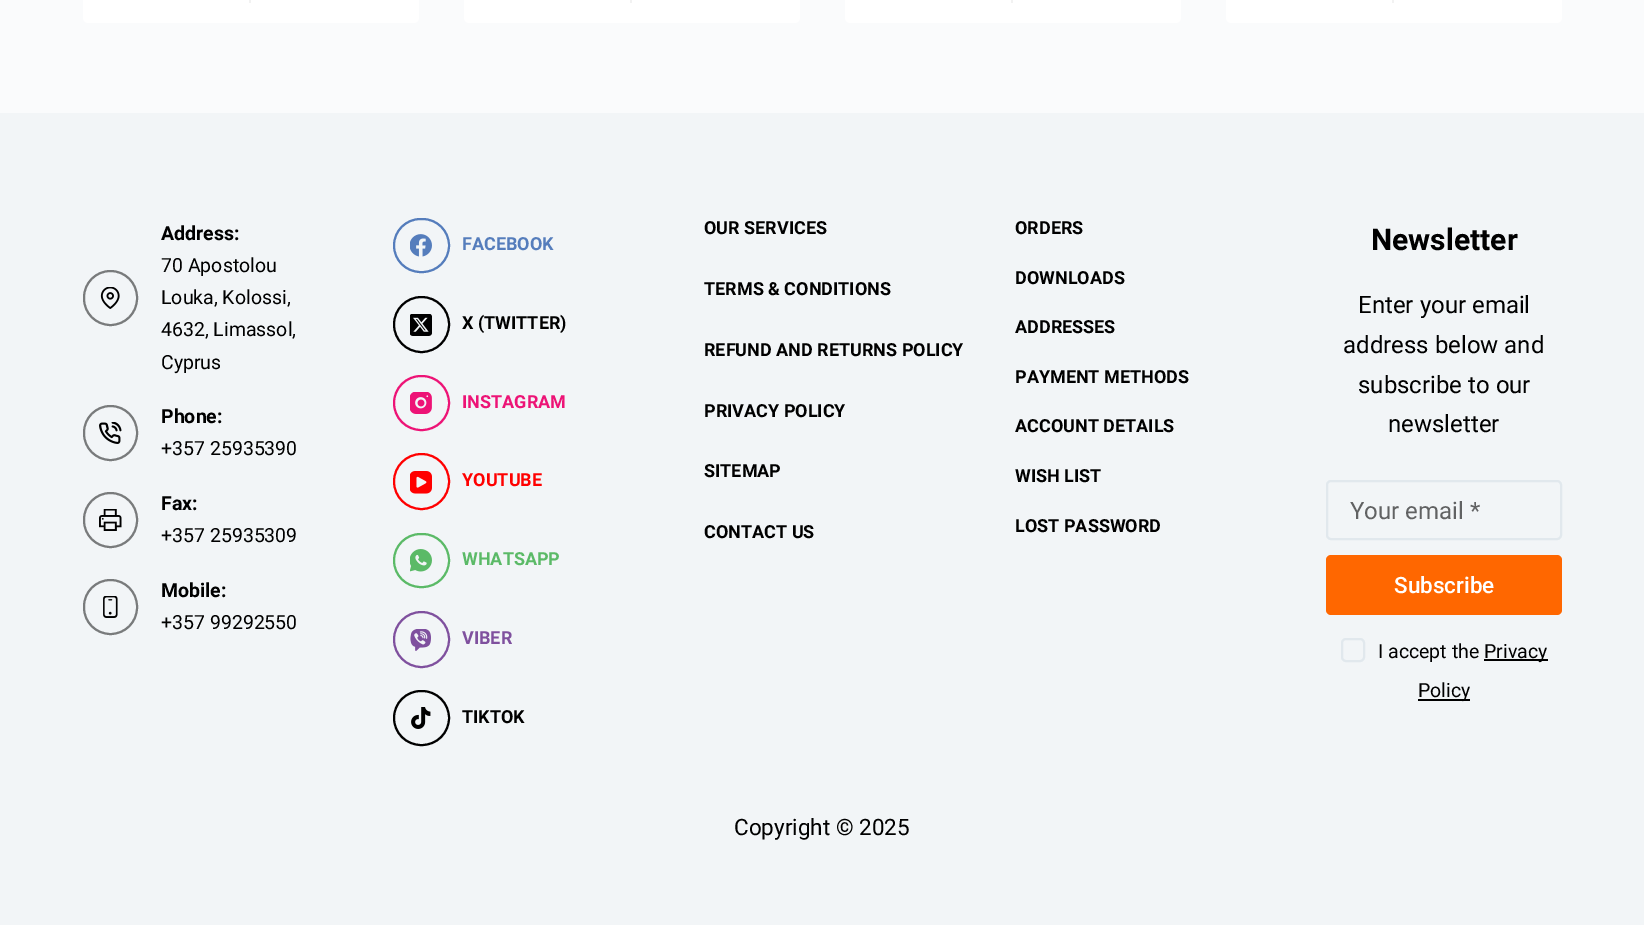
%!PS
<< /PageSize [1644 925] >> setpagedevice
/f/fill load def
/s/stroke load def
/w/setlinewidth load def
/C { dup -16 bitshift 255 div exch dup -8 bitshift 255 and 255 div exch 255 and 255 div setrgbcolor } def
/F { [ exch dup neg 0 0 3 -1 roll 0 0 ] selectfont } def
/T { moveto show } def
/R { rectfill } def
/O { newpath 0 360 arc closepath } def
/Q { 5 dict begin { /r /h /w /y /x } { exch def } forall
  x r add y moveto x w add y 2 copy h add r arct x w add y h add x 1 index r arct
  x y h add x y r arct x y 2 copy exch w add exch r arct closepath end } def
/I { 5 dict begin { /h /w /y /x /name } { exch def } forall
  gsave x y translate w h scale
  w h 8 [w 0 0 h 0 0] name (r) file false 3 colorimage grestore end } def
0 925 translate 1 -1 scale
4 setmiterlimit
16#FAFBFC C
0 0 1644 925 R
16#FFFFFF C
83 -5 336 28 5 Q f
16#F2F2F2 C
249 0 2 3 R
16#FFFFFF C
464 -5 336 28 5 Q f
16#F2F2F2 C
630 0 2 3 R
16#FFFFFF C
845 -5 336 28 5 Q f
16#F2F2F2 C
1011 0 2 3 R
16#FFFFFF C
1226 -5 336 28 5 Q f
16#F2F2F2 C
1392 0 2 3 R
16#F2F5F7 C
0 113 1644 812 R
16#797B7C C
2 w
84 271 53 54 26.5 Q s
(1.rgb) 100 287 20 22 I
/Roboto-Bold 19.5 F
16#000000 C
(Address:) 161 240 T
/Roboto-Regular 19.5 F
(70 Apostolou) 161 272 T
(Louka, Kolossi,) 161 304 T
(4632, Limassol,) 161 336 T
(Cyprus) 161 369 T
16#797B7C C
84 406 53 54 26.5 Q s
(2.rgb) 99 422 23 22 I
/Roboto-Bold 19.5 F
16#000000 C
(Phone:) 161 423 T
/Roboto-Regular 19.5 F
(+357 25935390) 161 455 T
16#797B7C C
84 493 53 54 26.5 Q s
(3.rgb) 99 509 23 22 I
/Roboto-Bold 19.5 F
16#000000 C
(Fax:) 161 510 T
/Roboto-Regular 19.5 F
(+357 25935309) 161 542 T
16#797B7C C
84 580 53 54 26.5 Q s
(4.rgb) 103 596 15 22 I
/Roboto-Bold 19.5 F
16#000000 C
(Mobile:) 161 597 T
/Roboto-Regular 19.5 F
(+357 99292550) 161 629 T
16#557DBC C
394 219 55 53 26.5 Q s
(5.rgb) 410 234 22 23 I
/Roboto-Bold 18 F
(FACEBOOK) 462 250 T
16#000000 C
421.5 324.5 27.5 O s
(6.rgb) 410 314 22 22 I
(X \(TWITTER\)) 462 329 T
16#ED1376 C
394 376 55 54 27 Q s
(7.rgb) 410 392 22 22 I
(INSTAGRAM) 462 408 T
16#FF0000 C
421.5 481.5 27.5 O s
(8.rgb) 410 471 22 23 I
(YOUTUBE) 462 486 T
16#5BBA67 C
394 534 55 53 26.5 Q s
(9.rgb) 410 549 22 23 I
(WHATSAPP) 462 565 T
16#7F509E C
421.5 639.5 27.5 O s
(10.rgb) 410 629 21 22 I
(VIBER) 462 644 T
16#000000 C
394 691 55 54 27 Q s
(11.rgb) 411 707 20 22 I
(TIKTOK) 462 723 T
(OUR SERVICES) 704 234 T
(TERMS & CONDITIONS) 704 295 T
(REFUND AND RETURNS POLICY) 704 356 T
(PRIVACY POLICY) 704 417 T
(SITEMAP) 704 477 T
(CONTACT US) 704 538 T
(ORDERS) 1015 234 T
(DOWNLOADS) 1015 284 T
(ADDRESSES) 1015 333 T
(PAYMENT METHODS) 1015 383 T
(ACCOUNT DETAILS) 1015 432 T
(WISH LIST) 1015 482 T
(LOST PASSWORD) 1015 532 T
/Roboto-Bold 30 F
(Newsletter) 1371 250 T
/Roboto-Regular 24 F
(Enter your email) 1358 313 T
(address below and) 1343 353 T
(subscribe to our) 1358 393 T
(newsletter) 1388 432 T
16#E1E8ED C
1327 481 234 58 4 Q s
16#616263 C
(Your email *) 1350 519 T
16#FF6700 C
1326 555 236 60 5 Q f
/Roboto-Medium 22.5 F
16#FFFFFF C
(Subscribe) 1394 593 T
16#E1E8ED C
1342 639 22 22 4 Q s
/Roboto-Regular 19.5 F
16#000000 C
(I accept the) 1378 658 T
1484 659 64 2 R
(Privacy) 1484 658 T
1418 699 52 2 R
(Policy) 1418 697 T
/Roboto-Regular 22.5 F
(Copyright © 2025) 734 835 T
showpage
